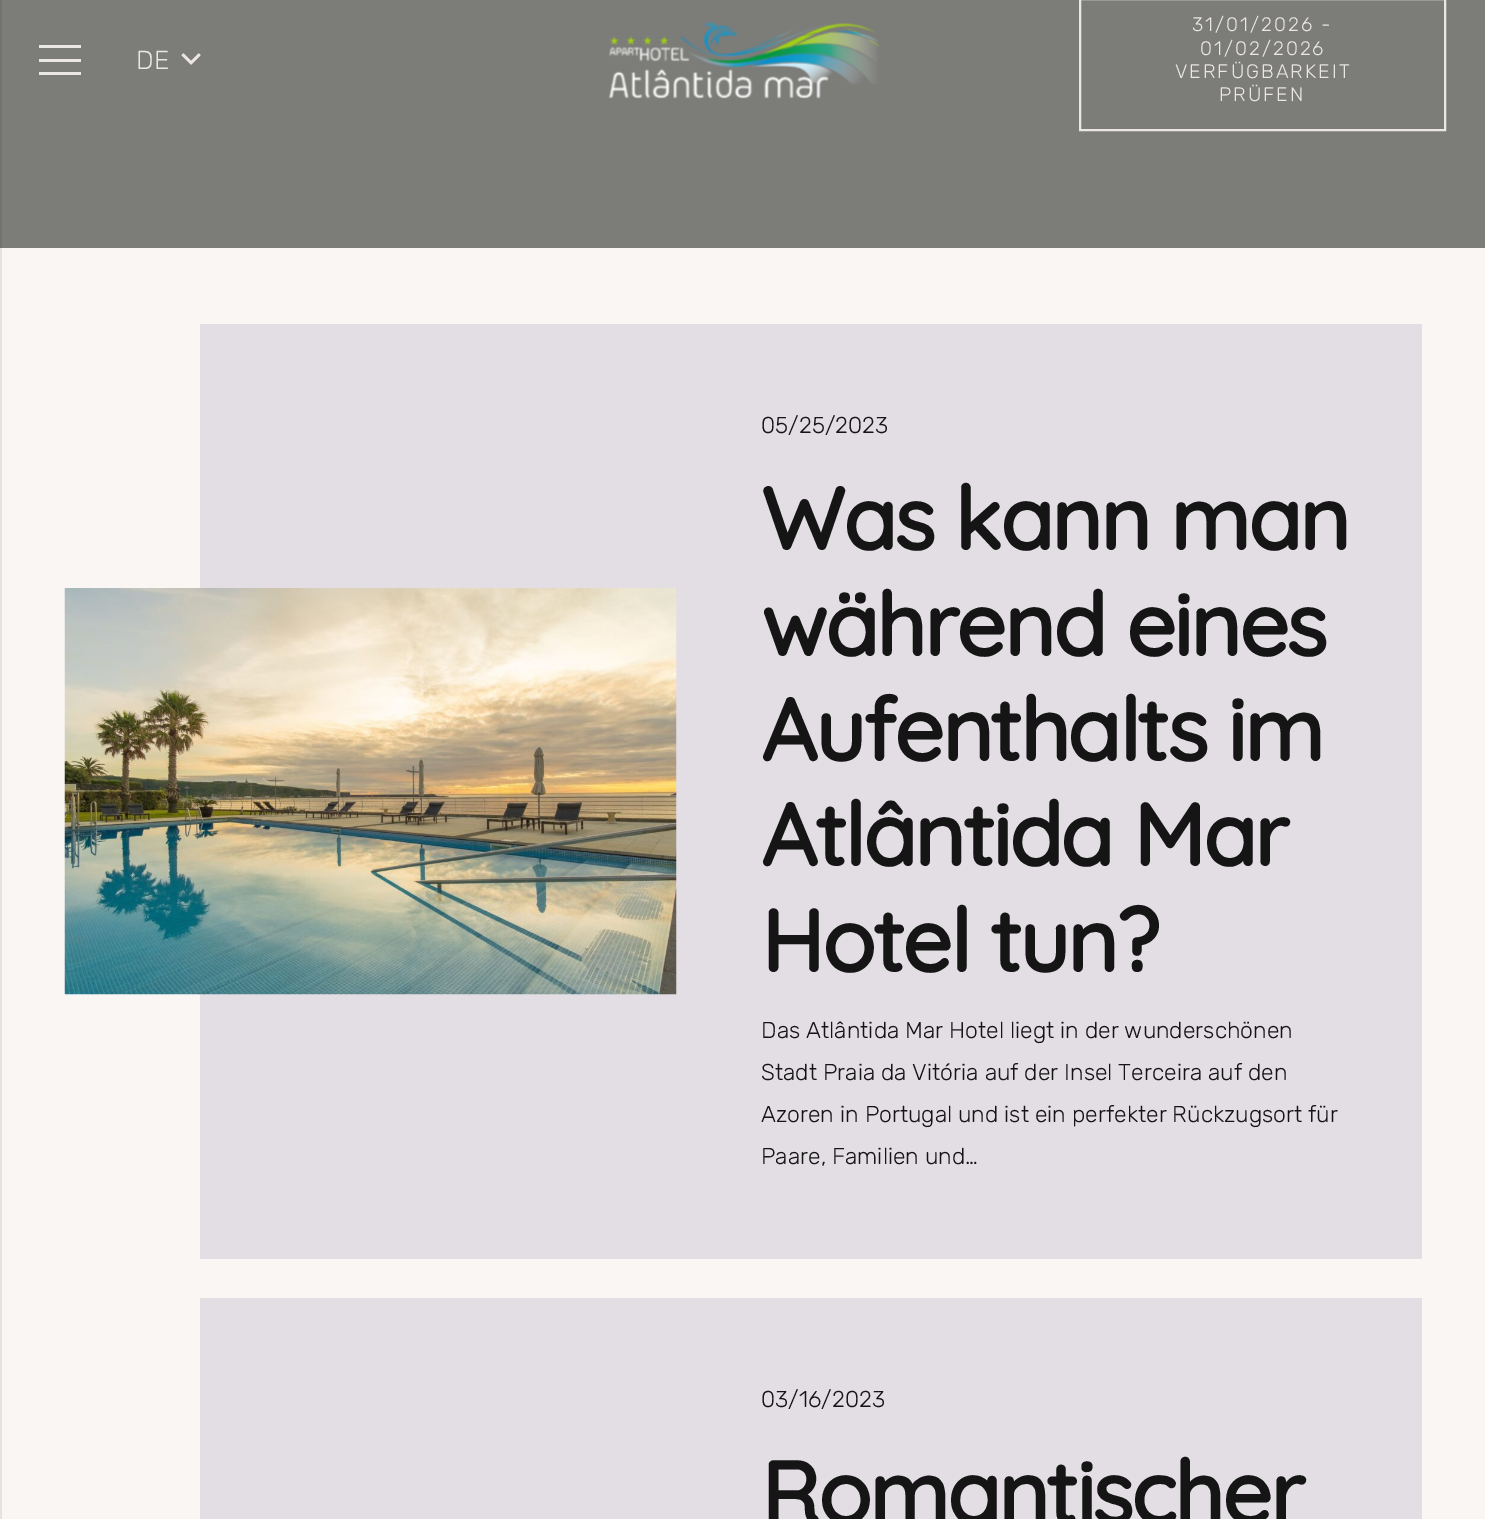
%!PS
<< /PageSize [1485 1519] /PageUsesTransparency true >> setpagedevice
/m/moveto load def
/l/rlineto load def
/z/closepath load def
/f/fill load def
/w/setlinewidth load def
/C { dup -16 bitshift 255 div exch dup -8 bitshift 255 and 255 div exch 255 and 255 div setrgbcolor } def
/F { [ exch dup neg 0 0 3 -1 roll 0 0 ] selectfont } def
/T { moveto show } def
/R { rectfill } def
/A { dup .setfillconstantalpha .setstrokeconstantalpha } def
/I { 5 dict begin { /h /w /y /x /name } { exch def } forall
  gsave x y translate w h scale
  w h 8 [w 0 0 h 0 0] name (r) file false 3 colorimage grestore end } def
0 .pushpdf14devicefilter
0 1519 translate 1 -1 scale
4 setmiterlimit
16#F9F6F4 C
0 0 1485 1519 R
16#7C7C79 C
0 0 1485 248 R
0.08 A
16#000000 C
-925 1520 m 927 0 l 0 -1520 l -2 0 l 0 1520 l z f
1 A
16#EBE7E5 C
39 59 42 3 R
39 45 42 3 R
39 72 42 3 R
/Rubik-Light 26 F
(DE) 136 69 T
(1.rgb) 181 53 20 12 I
(2.rgb) 608 21 272 78 I
2 w
1080 -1 365 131 rectstroke
/Rubik-Light 19.5 F
1192 31 m 2 0 (31/01/2026 -) ashow
1200 55 m 2 0 (01/02/2026) ashow
1175 78 m 2 0 (VERFÜGBARKEIT) ashow
1219 101 m 2 0 (PRÜFEN) ashow
16#E3DEE4 C
200 324 1222 935 R
(3.rgb) 64 588 613 407 I
/Rubik-Light 22.95 F
16#151515 C
(05/25/2023) 761 433 T
/Quicksand-Bold 87.75 F
761 550 m -2.6 0 (Was kann man) ashow
761 656 m -2.6 0 (während eines) ashow
761 761 m -2.6 0 (Aufenthalts im) ashow
761 866 m -2.6 0 (Atlântida Mar) ashow
761 972 m -2.6 0 (Hotel tun?) ashow
/Rubik-Light 22.95 F
(Das Atlântida Mar Hotel liegt in der wunderschönen) 761 1038 T
(Stadt Praia da Vitória auf der Insel Terceira auf den) 761 1080 T
(Azoren in Portugal und ist ein perfekter Rückzugsort für) 761 1122 T
(Paare, Familien und…) 761 1164 T
16#E3DEE4 C
200 1298 1222 221 R
16#151515 C
(03/16/2023) 761 1407 T
/Quicksand-Bold 87.75 F
761 1524 m -2.6 0 (Romantischer) ashow
.poppdf14devicefilter showpage
